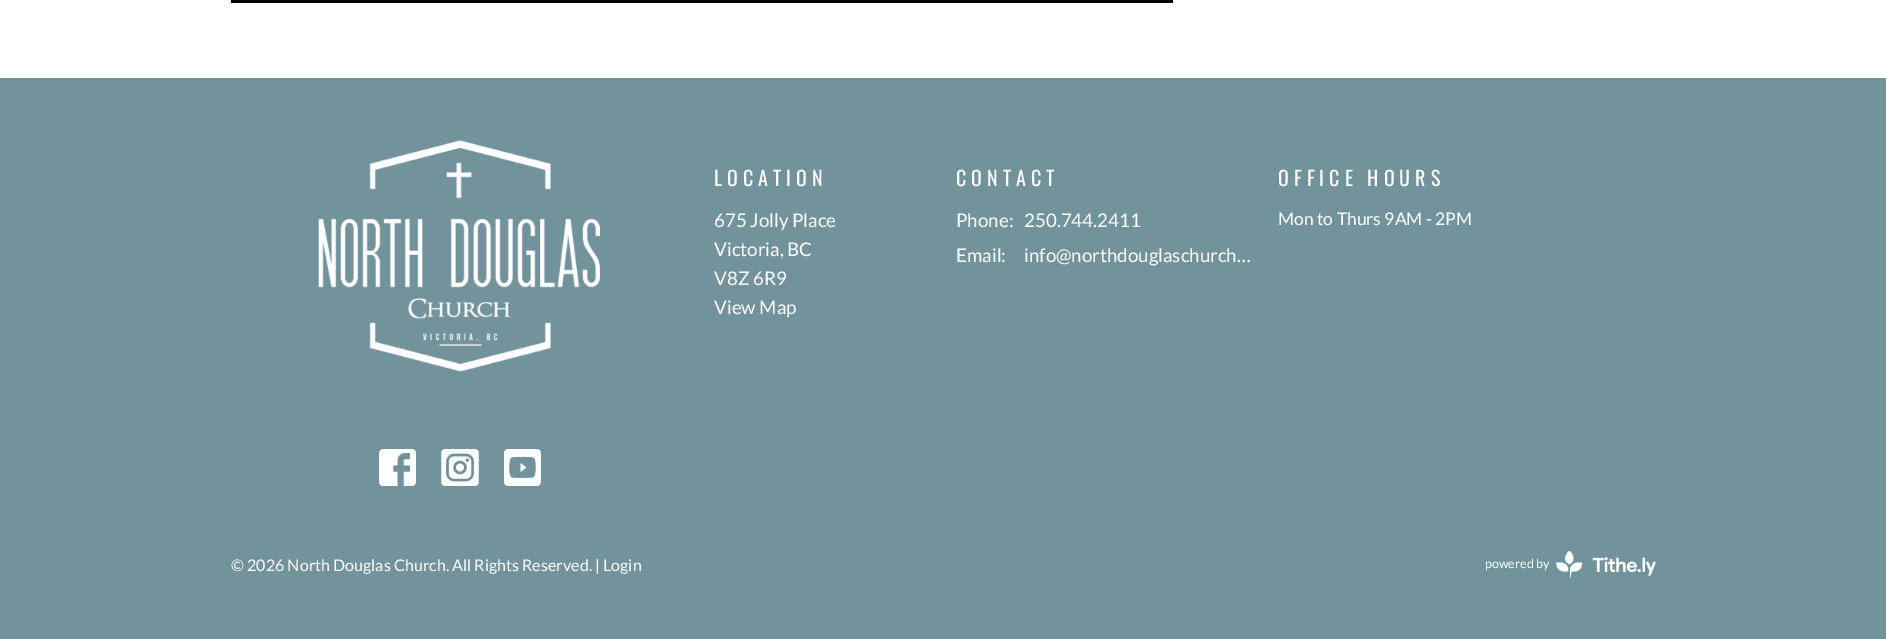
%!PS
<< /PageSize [1886 639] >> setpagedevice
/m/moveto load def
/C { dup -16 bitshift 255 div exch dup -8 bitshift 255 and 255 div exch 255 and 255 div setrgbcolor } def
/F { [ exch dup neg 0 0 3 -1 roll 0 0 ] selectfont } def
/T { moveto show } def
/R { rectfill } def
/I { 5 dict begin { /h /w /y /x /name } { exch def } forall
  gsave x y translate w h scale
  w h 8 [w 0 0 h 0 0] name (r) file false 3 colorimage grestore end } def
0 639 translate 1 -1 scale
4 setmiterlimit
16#FFFFFF C
0 0 1886 639 R
16#050505 C
231 0 942 3 R
16#73939C C
0 78 1886 561 R
(1.rgb) 318 140 282 232 I
/Oswald-Regular 20 F
16#FFFFFF C
714 186 m 5 0 (LOCATION) ashow
/Lato-Regular 18.75 F
(675 Jolly Place) 714 227 T
(Victoria, BC) 714 256 T
(V8Z 6R9) 714 285 T
(View Map) 714 314 T
/Oswald-Regular 20 F
956 186 m 5 0 (CONTACT) ashow
/Lato-Regular 18.75 F
(Phone:) 956 227 T
(250.744.2411) 1024 227 T
(Email:) 956 262 T
(info@northdouglaschurch…) 1024 262 T
/Oswald-Regular 20 F
1278 186 m 5 0 (OFFICE HOURS) ashow
/Lato-Regular 17.5 F
(Mon to Thurs 9AM - 2PM) 1278 225 T
(2.rgb) 379 449 37 37 I
(3.rgb) 441 449 38 37 I
(4.rgb) 504 449 37 37 I
/Lato-Regular 16.1 F
(© 2026 North Douglas Church. All Rights Reserved. | Login) 231 571 T
/Lato-Regular 12.5 F
(powered by) 1485 568 T
(5.rgb) 1556 551 100 27 I
showpage
